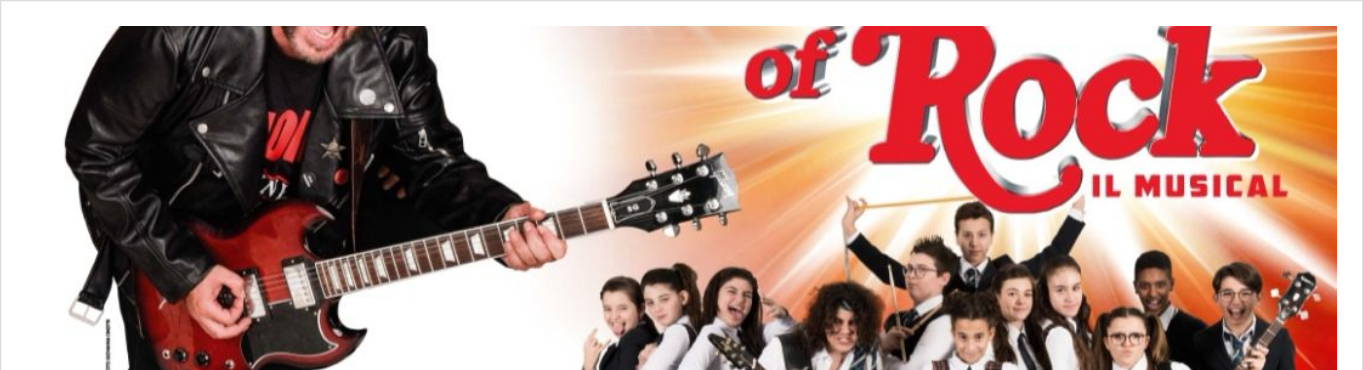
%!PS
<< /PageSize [1363 370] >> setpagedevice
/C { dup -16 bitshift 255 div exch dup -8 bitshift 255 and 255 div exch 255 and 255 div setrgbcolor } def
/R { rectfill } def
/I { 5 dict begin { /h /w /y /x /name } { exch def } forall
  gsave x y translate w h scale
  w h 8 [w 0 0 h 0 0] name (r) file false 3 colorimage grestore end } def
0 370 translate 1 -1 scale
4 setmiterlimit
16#FFFFFF C
0 0 1363 370 R
16#DCDCDE C
.5 .5 1362 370 rectstroke
(1.rgb) 63 26 1274 344 I
showpage
